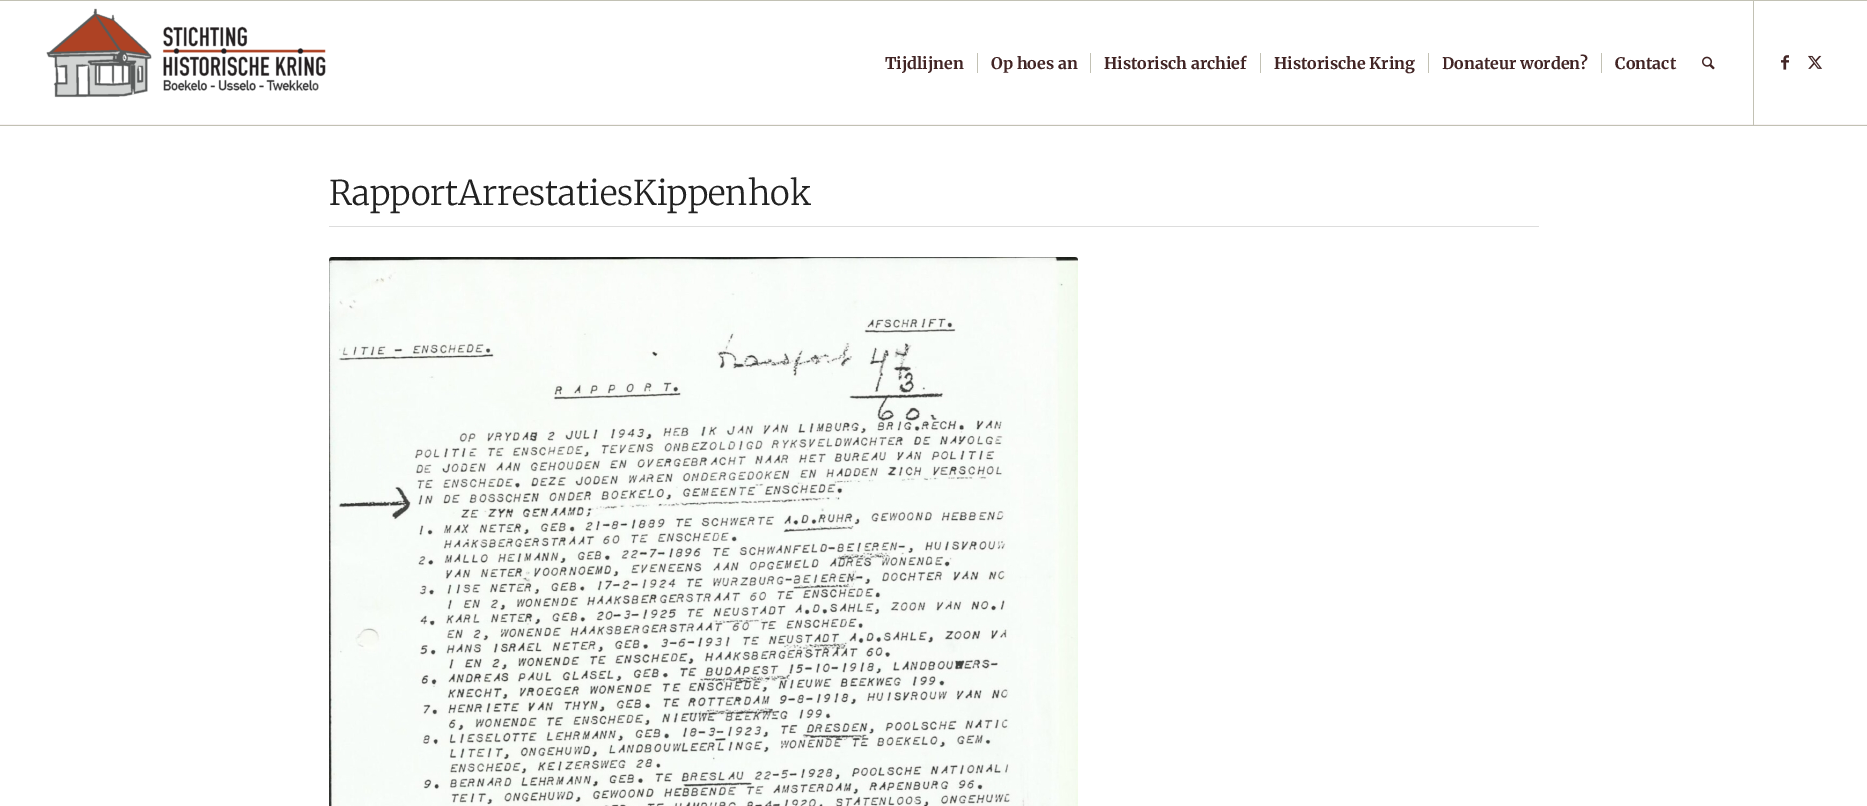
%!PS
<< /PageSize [1867 806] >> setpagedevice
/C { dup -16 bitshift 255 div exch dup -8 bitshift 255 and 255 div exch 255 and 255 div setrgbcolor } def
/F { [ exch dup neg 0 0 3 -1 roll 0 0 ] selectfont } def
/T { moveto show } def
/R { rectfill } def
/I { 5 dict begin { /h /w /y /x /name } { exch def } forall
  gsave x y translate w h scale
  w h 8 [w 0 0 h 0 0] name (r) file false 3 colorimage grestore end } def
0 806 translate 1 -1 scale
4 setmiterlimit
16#FFFFFF C
0 0 1867 806 R
16#C2C1B4 C
0 0 1867 1 R
0 125 1867 1 R
(1.rgb) 46 8 280 90 I
16#F7F3F3 C
0 124 1867 1 R
16#C2C1B4 C
1753 1 1 124 R
/Merriweather-Bold 16 F
16#422525 C
(Tijdlijnen) 885 69 T
(Op hoes an) 991 69 T
16#C2C1B4 C
977 53 1 20 R
16#422525 C
(Historisch archief) 1104 69 T
16#C2C1B4 C
1090 53 1 20 R
16#422525 C
(Historische Kring) 1274 69 T
16#C2C1B4 C
1260 53 1 20 R
16#422525 C
(Donateur worden?) 1442 69 T
16#C2C1B4 C
1428 53 1 20 R
16#422525 C
(Contact) 1615 69 T
16#C2C1B4 C
1601 53 1 20 R
(2.rgb) 1702 56 13 14 I
(3.rgb) 1781 55 8 15 I
(4.rgb) 1808 55 15 14 I
/Merriweather-Light 34 F
16#222222 C
(RapportArrestatiesKippenhok) 329 205 T
16#DDDDDD C
329 226 1210 1 R
(5.rgb) 329 257 749 549 I
showpage
